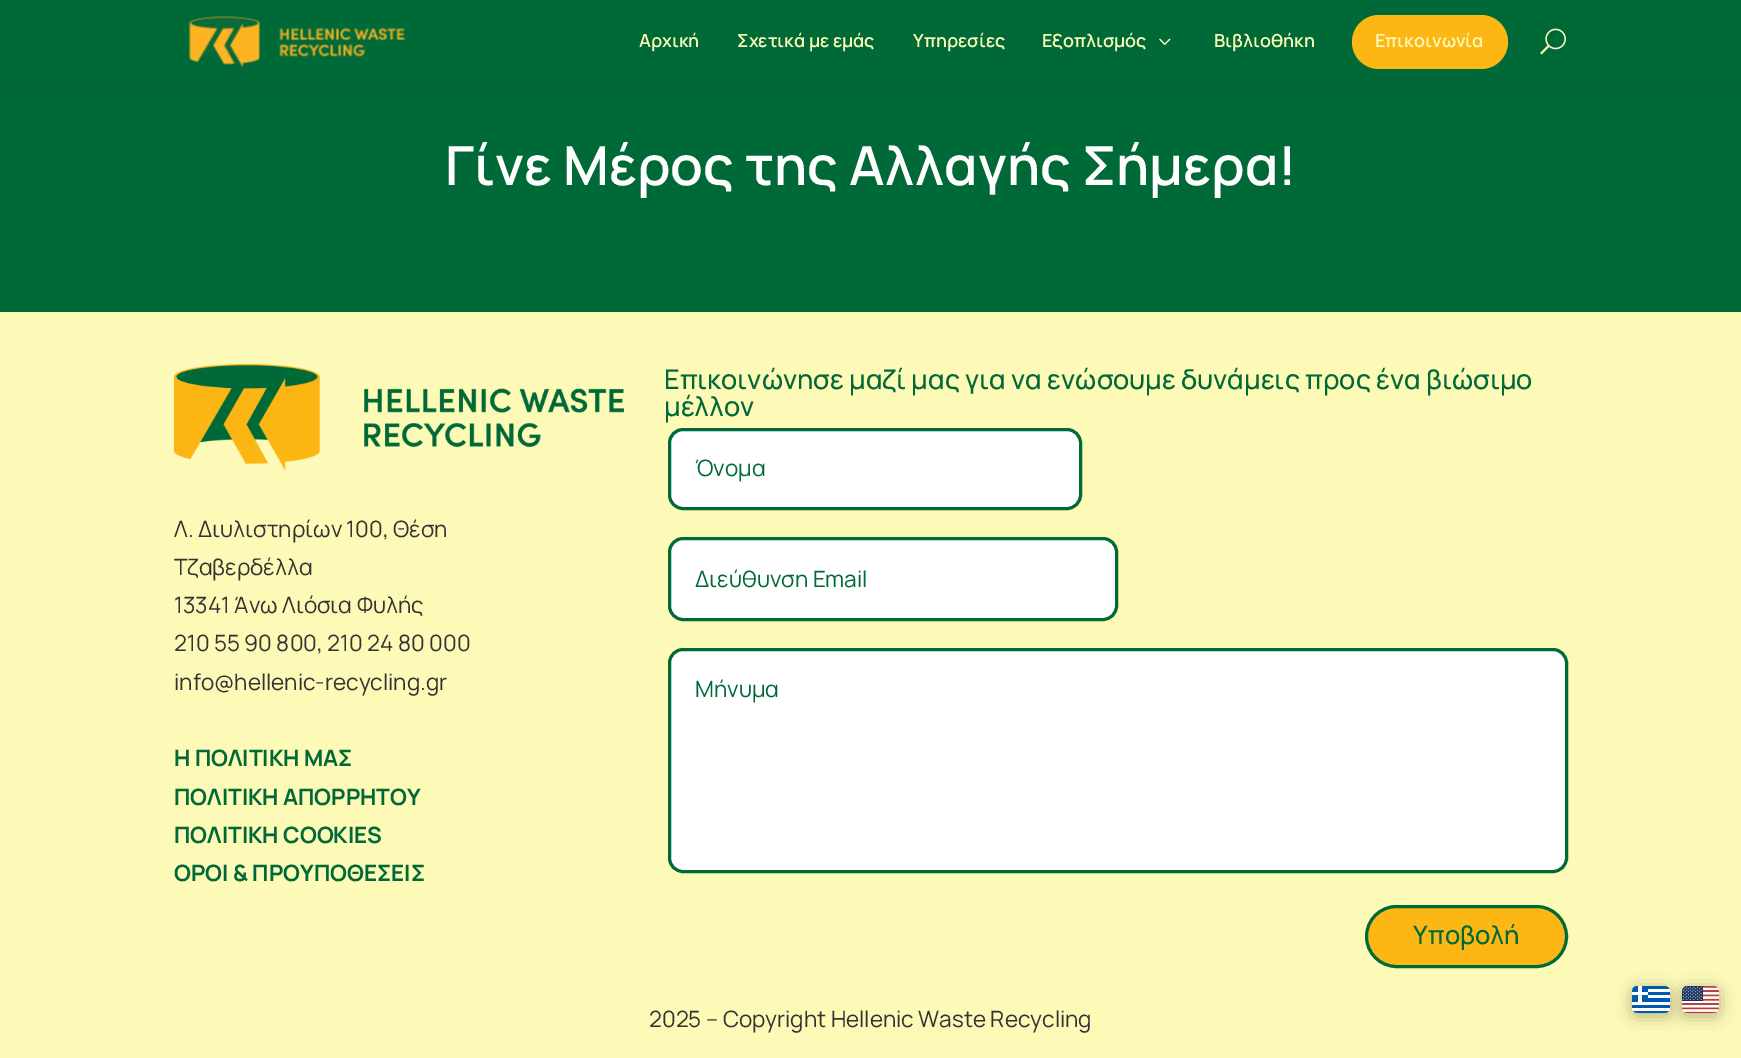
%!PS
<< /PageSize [1741 1058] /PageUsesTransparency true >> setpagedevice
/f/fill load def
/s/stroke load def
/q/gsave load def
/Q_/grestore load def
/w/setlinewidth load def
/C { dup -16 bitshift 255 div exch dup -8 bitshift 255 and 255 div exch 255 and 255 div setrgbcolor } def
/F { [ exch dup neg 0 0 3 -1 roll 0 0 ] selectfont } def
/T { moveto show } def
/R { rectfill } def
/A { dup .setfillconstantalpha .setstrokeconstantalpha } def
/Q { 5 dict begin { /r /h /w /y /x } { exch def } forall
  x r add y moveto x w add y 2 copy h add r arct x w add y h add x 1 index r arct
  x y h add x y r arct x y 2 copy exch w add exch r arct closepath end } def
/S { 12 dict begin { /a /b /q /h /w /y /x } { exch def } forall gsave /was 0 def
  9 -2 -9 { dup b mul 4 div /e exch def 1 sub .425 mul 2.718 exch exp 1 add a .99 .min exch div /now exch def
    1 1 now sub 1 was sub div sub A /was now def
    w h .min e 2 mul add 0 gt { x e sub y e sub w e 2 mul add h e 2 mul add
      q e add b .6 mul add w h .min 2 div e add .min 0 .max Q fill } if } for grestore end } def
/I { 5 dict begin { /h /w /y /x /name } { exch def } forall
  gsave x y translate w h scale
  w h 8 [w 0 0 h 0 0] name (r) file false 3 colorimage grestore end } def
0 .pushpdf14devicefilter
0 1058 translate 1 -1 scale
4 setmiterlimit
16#006938 C
0 0 1741 1058 R
16#000000 C
0 0 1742 84 0 5 .1 S
16#006938 C
0 0 1741 84 R
(1.rgb) 188 16 218 52 I
/Manrope-SemiBold 18 F
16#FDF9B6 C
(Αρχική) 639 47 T
(Σχετικά με εμάς) 737 47 T
(Υπηρεσίες) 913 47 T
(Εξοπλισμός) 1042 47 T
(2.rgb) 1159 38 12 7 I
(Βιβλιοθήκη) 1214 47 T
16#FDB714 C
1352 15 156 54 27 Q f
16#FDF9B6 C
(Επικοινωνία) 1375 47 T
(3.rgb) 1540 28 26 27 I
/Manrope-SemiBold 54 F
16#FFFFFF C
(Γίνε Μέρος της Αλλαγής Σήμερα!) 445 185 T
16#FDF9B6 C
0 312 1741 746 R
(4.rgb) 174 364 450 107 I
/Manrope-Regular 22.5 F
16#333333 C
(Λ. Διυλιστηρίων 100, Θέση) 174 537 T
(Τζαβερδέλλα) 174 575 T
(13341 Άνω Λιόσια Φυλής) 174 613 T
(210 55 90 800, 210 24 80 000) 174 651 T
(info@hellenic-recycling.gr) 174 690 T
/Manrope-Bold 22.5 F
16#006938 C
(Η ΠΟΛΙΤΙΚΗ ΜΑΣ) 174 766 T
(ΠΟΛΙΤΙΚΗ ΑΠΟΡΡΗΤΟΥ) 174 805 T
(ΠΟΛΙΤΙΚΗ COOKIES) 174 843 T
(ΟΡΟΙ & ΠΡΟΥΠΟΘΕΣΕΙΣ) 174 881 T
/Manrope-Medium 27 F
(Επικοινώνησε μαζί μας για να ενώσουμε δυνάμεις προς ένα βιώσιμο) 664 389 T
(μέλλον) 664 416 T
16#FFFFFF C
669.5 429.5 411 79 13.5 Q q f Q_
16#006938 C
3 w
s
/Manrope-Regular 22.5 F
(Όνομα) 695 476 T
16#FFFFFF C
669.5 538.5 447 81 13.5 Q q f Q_
16#006938 C
s
(Διεύθυνση Email) 695 587 T
16#FFFFFF C
669.5 649.5 897 222 13.5 Q q f Q_
16#006938 C
s
(Μήνυμα) 695 697 T
16#FDB714 C
1366.5 906.5 200 60 30 Q q f Q_
16#006938 C
s
/Manrope-Medium 25.5 F
(Υποβολή) 1413 944 T
/Manrope-Regular 22.5 F
16#333333 C
(2025 – Copyright Hellenic Waste Recycling) 649 1027 T
16#000000 C
1632 989 38 27 5 8 .3 S
(5.rgb) 1632 986 38 27 I
1682 989 37 27 5 8 .3 S
(6.rgb) 1682 986 37 27 I
.poppdf14devicefilter showpage
